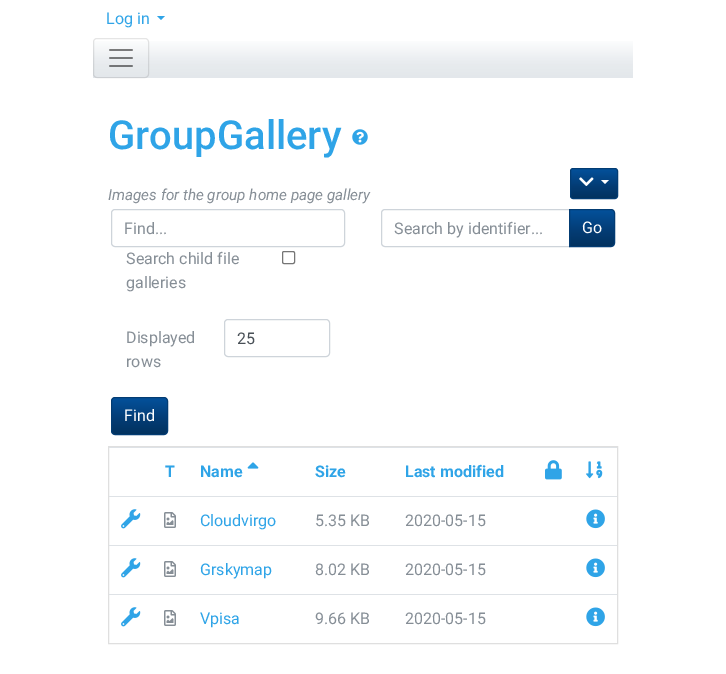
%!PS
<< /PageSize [726 674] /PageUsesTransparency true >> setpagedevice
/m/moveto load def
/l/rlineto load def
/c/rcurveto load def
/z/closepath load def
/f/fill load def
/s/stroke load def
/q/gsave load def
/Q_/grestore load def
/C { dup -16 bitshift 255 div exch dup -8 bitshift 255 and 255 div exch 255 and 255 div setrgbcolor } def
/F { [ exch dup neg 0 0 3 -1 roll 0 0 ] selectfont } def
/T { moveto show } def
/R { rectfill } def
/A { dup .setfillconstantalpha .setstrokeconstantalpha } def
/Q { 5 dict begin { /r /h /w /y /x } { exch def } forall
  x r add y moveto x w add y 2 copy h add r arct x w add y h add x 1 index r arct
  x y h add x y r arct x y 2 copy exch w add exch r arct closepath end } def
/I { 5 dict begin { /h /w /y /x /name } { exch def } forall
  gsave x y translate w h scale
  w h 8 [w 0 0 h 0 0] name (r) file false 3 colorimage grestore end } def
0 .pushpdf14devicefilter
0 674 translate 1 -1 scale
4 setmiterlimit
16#FFFFFF C
0 0 726 674 R
/Roboto-Regular 16 F
16#2FA4E7 C
(Log in) 106 24 T
157 16 m 8 0 l -4 4 l z f
q 149 41 m 484 0 l 0 37 l -484 0 l z clip newpath
<< /ShadingType 2 /ColorSpace /DeviceRGB /Coords [363 38 363 78] /Extend [true true] /Function << /FunctionType 3 /Domain [0 1] /Functions [<< /FunctionType 2 /Domain [0 1] /C0 [1 1 1] /C1 [.914 .925 .937] /N 1 >> << /FunctionType 2 /Domain [0 1] /C0 [.914 .925 .937] /C1 [.89 .906 .922] /N 1 >>] /Bounds [.6] /Encode [0 1 0 1] >> >> shfill Q_
q 93 41 m 56 0 l 0 37 l -56 0 l z clip newpath
<< /ShadingType 2 /ColorSpace /DeviceRGB /Coords [121 38 121 78] /Extend [true true] /Function << /FunctionType 3 /Domain [0 1] /Functions [<< /FunctionType 2 /Domain [0 1] /C0 [1 1 1] /C1 [.914 .925 .937] /N 1 >> << /FunctionType 2 /Domain [0 1] /C0 [.914 .925 .937] /C1 [.89 .906 .922] /N 1 >>] /Bounds [.6] /Encode [0 1 0 1] >> >> shfill Q_
0.1 A
16#000000 C
93.5 38.5 55 39 3.5 Q s
1 A
(1.rgb) 109 49 24 18 I
/Roboto-Medium 40 F
16#2FA4E7 C
(GroupGallery) 108 149 T
(2.rgb) 352 129 16 16 I
/Roboto-Italic 15.25 F
16#868E96 C
(Images for the group home page gallery) 108 200 T
q 571 169 m 46 0 l 0 29 l -46 0 l z clip newpath
<< /ShadingType 2 /ColorSpace /DeviceRGB /Coords [594 169 594 198] /Extend [true true] /Function << /FunctionType 3 /Domain [0 1] /Functions [<< /FunctionType 2 /Domain [0 1] /C0 [.016 .318 .608] /C1 [.012 .235 .451] /N 1 >> << /FunctionType 2 /Domain [0 1] /C0 [.012 .235 .451] /C1 [.008 .196 .373] /N 1 >>] /Bounds [.6] /Encode [0 1 0 1] >> >> shfill Q_
16#033C73 C
570.5 168.5 47 30 2.5 Q s
(3.rgb) 579 177 15 9 I
16#FFFFFF C
601 180 m 8 0 l -4 4 l z f
16#CED4DA C
111.5 209.5 233 37 3.5 Q s
/Roboto-Regular 16 F
16#868E96 C
(Find...) 124 234 T
(Search child file) 126 264 T
(galleries) 126 288 T
16#767676 C
282.5 251.5 12 12 1.5 Q s
16#868E96 C
(Displayed) 126 343 T
(rows) 126 367 T
16#CED4DA C
224.5 319.5 105 37 3.5 Q s
16#495057 C
(25) 237 344 T
q
111 397 57 38 4 Q clip newpath
q 112 398 m 55 0 l 0 36 l -55 0 l z clip newpath
<< /ShadingType 2 /ColorSpace /DeviceRGB /Coords [140 398 140 434] /Extend [true true] /Function << /FunctionType 3 /Domain [0 1] /Functions [<< /FunctionType 2 /Domain [0 1] /C0 [.016 .318 .608] /C1 [.012 .235 .451] /N 1 >> << /FunctionType 2 /Domain [0 1] /C0 [.012 .235 .451] /C1 [.008 .196 .373] /N 1 >>] /Bounds [.6] /Encode [0 1 0 1] >> >> shfill Q_
Q_
16#033C73 C
111.5 397.5 56 37 3.5 Q s
16#FFFFFF C
(Find) 124 421 T
16#CED4DA C
385 209.5 m 184.5 0 l 0 37 l -184.5 0 l -2 0 -3.5 -1.5 -3.5 -3.5 c 0 -30 l 0 -2 1.5 -3.5 3.5 -3.5 c z s
16#868E96 C
(Search by identifier...) 394 234 T
q 570 210 m 44 0 l 0 36 l -44 0 l z clip newpath
<< /ShadingType 2 /ColorSpace /DeviceRGB /Coords [592 210 592 246] /Extend [true true] /Function << /FunctionType 3 /Domain [0 1] /Functions [<< /FunctionType 2 /Domain [0 1] /C0 [.016 .318 .608] /C1 [.012 .235 .451] /N 1 >> << /FunctionType 2 /Domain [0 1] /C0 [.012 .235 .451] /C1 [.008 .196 .373] /N 1 >>] /Bounds [.6] /Encode [0 1 0 1] >> >> shfill Q_
16#033C73 C
569.5 209.5 m 41.5 0 l 2 0 3.5 1.5 3.5 3.5 c 0 30 l 0 2 -1.5 3.5 -3.5 3.5 c -41.5 0 l z s
16#FFFFFF C
(Go) 582 233 T
16#DFDFDF C
108.5 446.5 509 197 rectstroke
16#DEE2E6 C
109 447 508 1 R
(4.rgb) 586 461 17 18 I
/Roboto-Bold 16 F
16#2FA4E7 C
(T) 165 477 T
(Name) 200 477 T
(5.rgb) 247 462 12 7 I
(Size) 315 477 T
(Last modified) 405 477 T
(6.rgb) 545 460 17 20 I
16#DEE2E6 C
109 496 508 1 R
(7.rgb) 586 509 19 20 I
(8.rgb) 121 509 20 20 I
(9.rgb) 164 512 12 16 I
/Roboto-Regular 16 F
16#2FA4E7 C
(Cloudvirgo) 200 526 T
16#868E96 C
(5.35 KB) 315 526 T
(2020-05-15) 405 526 T
16#DEE2E6 C
109 545 508 1 R
(7.rgb) 586 558 19 20 I
(8.rgb) 121 558 20 20 I
(9.rgb) 164 561 12 16 I
16#2FA4E7 C
(Grskymap) 200 575 T
16#868E96 C
(8.02 KB) 315 575 T
(2020-05-15) 405 575 T
16#DEE2E6 C
109 594 508 1 R
(7.rgb) 586 607 19 20 I
(8.rgb) 121 607 20 20 I
(9.rgb) 164 610 12 16 I
16#2FA4E7 C
(Vpisa) 200 624 T
16#868E96 C
(9.66 KB) 315 624 T
(2020-05-15) 405 624 T
.poppdf14devicefilter showpage
